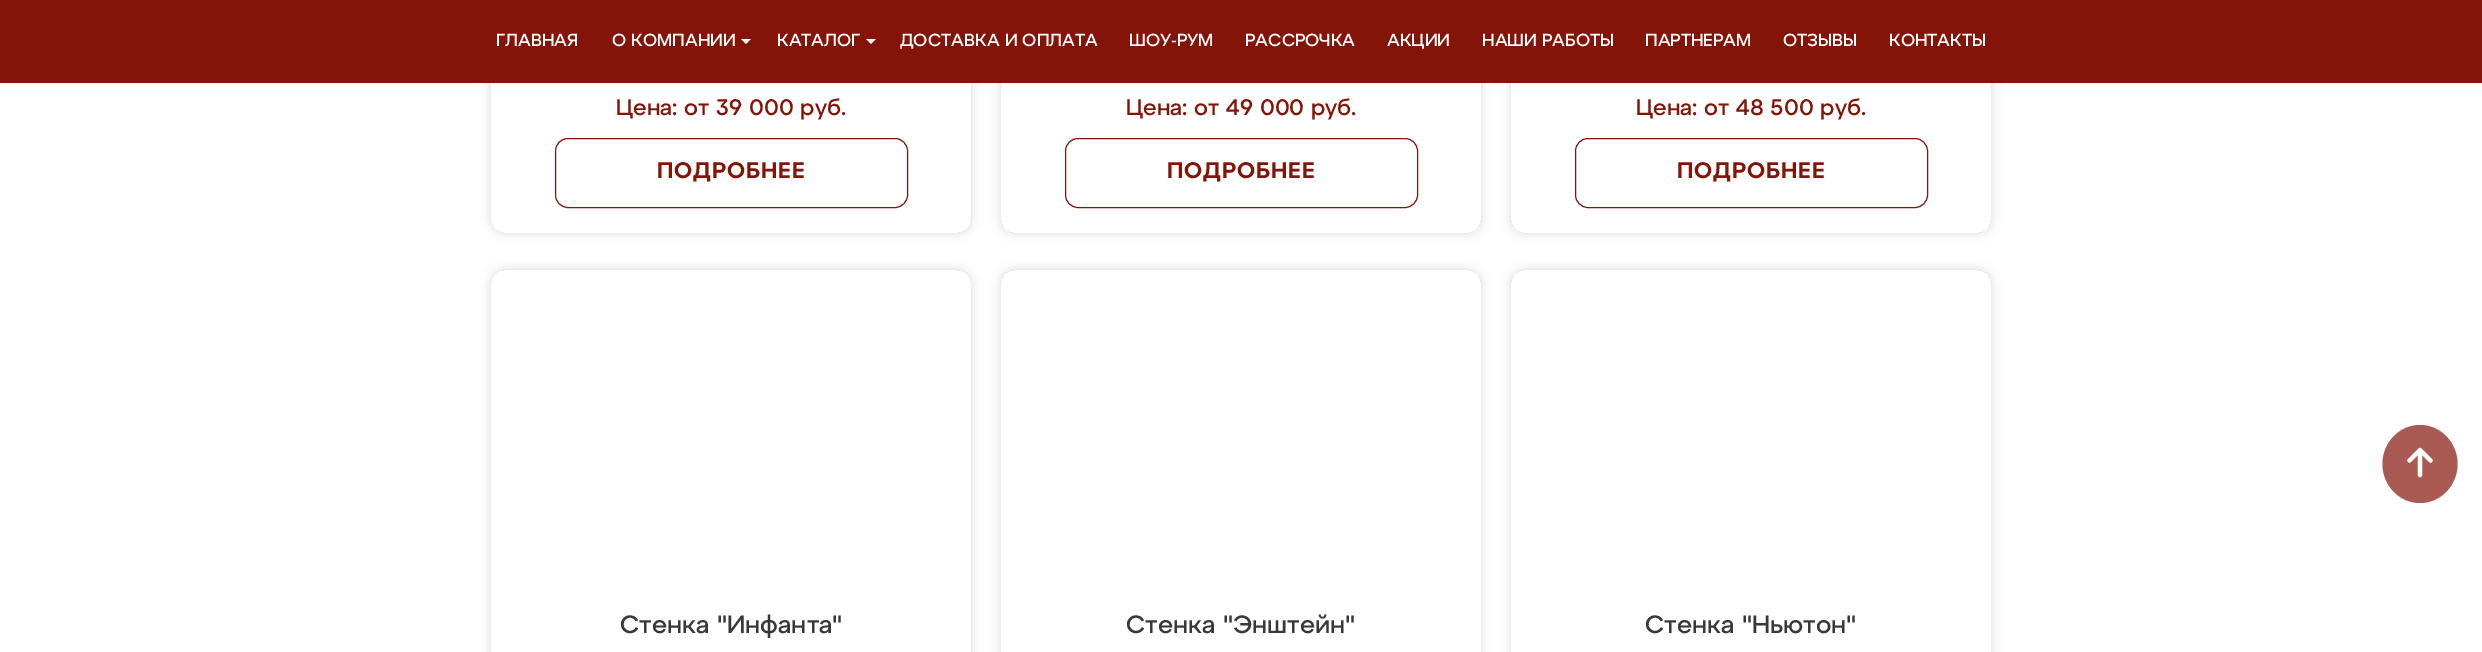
%!PS
<< /PageSize [2482 652] /PageUsesTransparency true >> setpagedevice
/m/moveto load def
/l/rlineto load def
/c/rcurveto load def
/z/closepath load def
/f/fill load def
/s/stroke load def
/q/gsave load def
/Q_/grestore load def
/w/setlinewidth load def
/C { dup -16 bitshift 255 div exch dup -8 bitshift 255 and 255 div exch 255 and 255 div setrgbcolor } def
/F { [ exch dup neg 0 0 3 -1 roll 0 0 ] selectfont } def
/T { moveto show } def
/R { rectfill } def
/A { dup .setfillconstantalpha .setstrokeconstantalpha } def
/Q { 5 dict begin { /r /h /w /y /x } { exch def } forall
  x r add y moveto x w add y 2 copy h add r arct x w add y h add x 1 index r arct
  x y h add x y r arct x y 2 copy exch w add exch r arct closepath end } def
/S { 12 dict begin { /a /b /q /h /w /y /x } { exch def } forall gsave /was 0 def
  9 -2 -9 { dup b mul 4 div /e exch def 1 sub .425 mul 2.718 exch exp 1 add a .99 .min exch div /now exch def
    1 1 now sub 1 was sub div sub A /was now def
    w h .min e 2 mul add 0 gt { x e sub y e sub w e 2 mul add h e 2 mul add
      q e add b .6 mul add w h .min 2 div e add .min 0 .max Q fill } if } for grestore end } def
0 .pushpdf14devicefilter
0 652 translate 1 -1 scale
4 setmiterlimit
16#FFFFFF C
0 0 2482 652 R
q
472 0 m 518 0 l 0 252 l -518 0 l z 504 -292 m 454 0 l 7 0 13 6 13 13 c 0 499 l 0 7 -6 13 -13 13 c -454 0 l -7 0 -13 -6 -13 -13 c 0 -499 l 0 -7 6 -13 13 -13 c z eoclip newpath
16#D9D9D9 C
491 -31 480 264 13 6 1 S
Q_
q
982 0 m 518 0 l 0 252 l -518 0 l z 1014 -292 m 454 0 l 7 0 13 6 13 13 c 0 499 l 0 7 -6 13 -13 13 c -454 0 l -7 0 -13 -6 -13 -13 c 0 -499 l 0 -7 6 -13 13 -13 c z eoclip newpath
16#D9D9D9 C
1001 -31 480 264 13 6 1 S
Q_
q
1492 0 m 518 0 l 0 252 l -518 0 l z 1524 -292 m 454 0 l 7 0 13 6 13 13 c 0 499 l 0 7 -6 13 -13 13 c -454 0 l -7 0 -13 -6 -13 -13 c 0 -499 l 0 -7 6 -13 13 -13 c z eoclip newpath
16#D9D9D9 C
1511 -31 480 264 13 6 1 S
Q_
16#841308 C
0 0 2482 83 R
/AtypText-Medium 17.5 F
16#FFFFFF C
(ГЛАВНАЯ) 496 46 T
(О КОМПАНИИ) 612 46 T
746 44 m -5 -5 l 10 0 l z f
(КАТАЛОГ) 777 46 T
871 44 m -5 -5 l 10 0 l z f
(ДОСТАВКА И ОПЛАТА) 900 46 T
(ШОУ-РУМ) 1129 46 T
(РАССРОЧКА) 1245 46 T
(АКЦИИ) 1387 46 T
(НАШИ РАБОТЫ) 1482 46 T
(ПАРТНЕРАМ) 1645 46 T
(ОТЗЫВЫ) 1783 46 T
(КОНТАКТЫ) 1889 46 T
/AtypText-Medium 22.5 F
16#841308 C
(Цена: от 39 000 руб.) 616 115 T
555.5 138.5 352 69 12.5 Q s
/AtypText-SemiBold 22.5 F
657 178 m 1 0 (ПОДРОБНЕЕ) ashow
/AtypText-Medium 22.5 F
(Цена: от 49 000 руб.) 1126 115 T
1065.5 138.5 352 69 12.5 Q s
/AtypText-SemiBold 22.5 F
1167 178 m 1 0 (ПОДРОБНЕЕ) ashow
/AtypText-Medium 22.5 F
(Цена: от 48 500 руб.) 1636 115 T
1575.5 138.5 352 69 12.5 Q s
/AtypText-SemiBold 22.5 F
1677 178 m 1 0 (ПОДРОБНЕЕ) ashow
q
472 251 m 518 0 l 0 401 l -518 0 l z 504 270 m 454 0 l 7 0 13 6 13 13 c 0 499 l 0 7 -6 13 -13 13 c -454 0 l -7 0 -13 -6 -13 -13 c 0 -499 l 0 -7 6 -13 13 -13 c z eoclip newpath
16#D9D9D9 C
491 270 480 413 13 6 1 S
Q_
/AtypText-Medium 25 F
16#383838 C
(Стенка "Инфанта") 620 633 T
q
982 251 m 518 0 l 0 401 l -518 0 l z 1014 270 m 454 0 l 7 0 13 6 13 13 c 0 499 l 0 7 -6 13 -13 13 c -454 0 l -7 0 -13 -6 -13 -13 c 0 -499 l 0 -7 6 -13 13 -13 c z eoclip newpath
16#D9D9D9 C
1001 270 480 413 13 6 1 S
Q_
(Стенка "Энштейн") 1126 633 T
q
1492 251 m 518 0 l 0 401 l -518 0 l z 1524 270 m 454 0 l 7 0 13 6 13 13 c 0 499 l 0 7 -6 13 -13 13 c -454 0 l -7 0 -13 -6 -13 -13 c 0 -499 l 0 -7 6 -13 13 -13 c z eoclip newpath
16#D9D9D9 C
1511 270 480 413 13 6 1 S
Q_
(Стенка "Ньютон") 1645 633 T
16#A95A52 C
2420 425 m 20.5 0 37.5 17.5 37.5 39 c 0 21.5 -17 39 -37.5 39 c -20.5 0 -37.5 -17.5 -37.5 -39 c 0 -21.5 17 -39 37.5 -39 c z f
16#FFFFFF C
4.2 w
1 setlinecap
1 setlinejoin
2420 450 m 0 25 l 2420 450 m -10.5 10.5 l 2420 450 m 10.5 10.5 l s
.poppdf14devicefilter showpage
